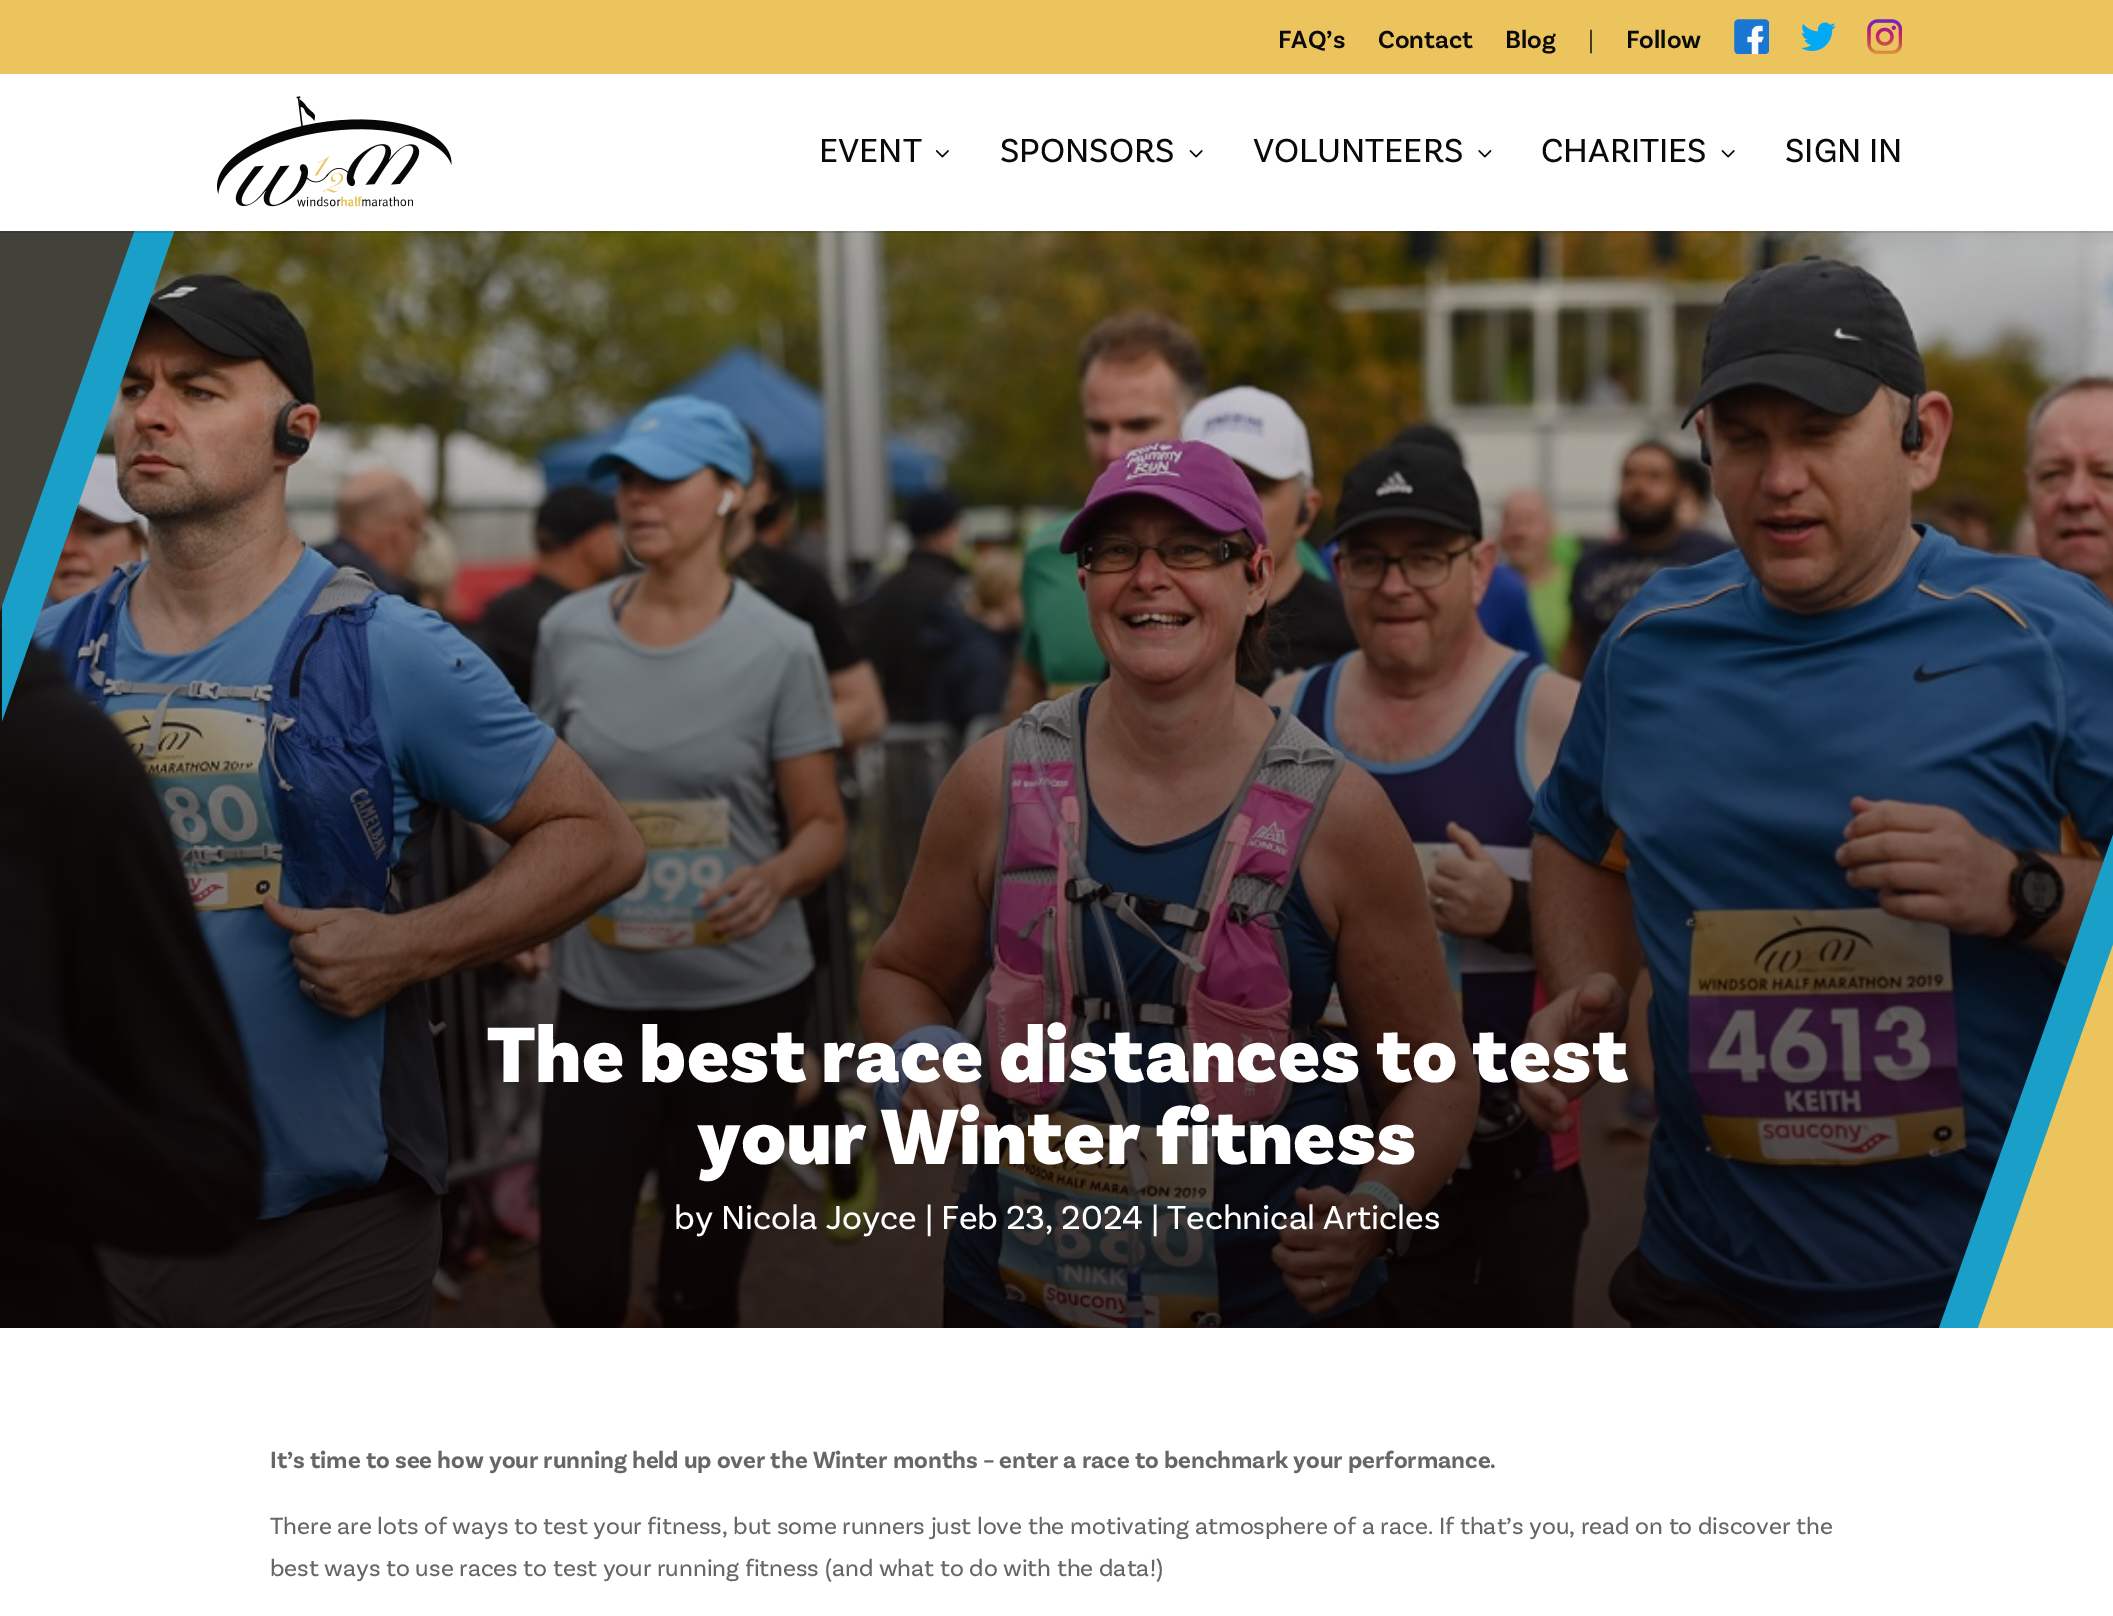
%!PS
<< /PageSize [2113 1616] /PageUsesTransparency true >> setpagedevice
/m/moveto load def
/l/rlineto load def
/z/closepath load def
/f/fill load def
/C { dup -16 bitshift 255 div exch dup -8 bitshift 255 and 255 div exch 255 and 255 div setrgbcolor } def
/F { [ exch dup neg 0 0 3 -1 roll 0 0 ] selectfont } def
/T { moveto show } def
/R { rectfill } def
/A { dup .setfillconstantalpha .setstrokeconstantalpha } def
/I { 5 dict begin { /h /w /y /x /name } { exch def } forall
  gsave x y translate w h scale
  w h 8 [w 0 0 h 0 0] name (r) file false 3 colorimage grestore end } def
0 .pushpdf14devicefilter
0 1616 translate 1 -1 scale
4 setmiterlimit
16#FFFFFF C
0 0 2113 1616 R
16#ECC45E C
0 0 2113 74 R
/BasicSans-SemiBold 26 F
16#0A0A0A C
(FAQ’s) 1278 48 T
(Contact) 1378 48 T
(Blog) 1505 48 T
/BasicSans-Light 26 F
(|) 1588 48 T
/BasicSans-SemiBold 26 F
(Follow) 1626 48 T
(1.rgb) 1734 19 35 35 I
(2.rgb) 1801 22 35 29 I
(3.rgb) 1867 19 35 35 I
(8.rgb) 0 231 2113 1097 I
16#1A9FC8 C
2 721 m 173 -492 l -173 0 l z f
16#42413A C
0 611 m 135 -382 l -135 0 l z f
0.1 A
16#000000 C
0 231 2113 2 R
1 A
16#FFFFFF C
0 229 175 2 R
(4.rgb) 217 96 235 111 I
/BasicSans-Regular 35 F
16#0A0A0A C
(EVENT) 819 162 T
(5.rgb) 935 150 14 8 I
(SPONSORS) 1000 162 T
(6.rgb) 1189 150 14 8 I
(VOLUNTEERS) 1253 162 T
(7.rgb) 1478 150 14 8 I
(CHARITIES) 1541 162 T
(6.rgb) 1721 150 14 8 I
(SIGN IN) 1785 162 T
/BasicSans-Black 82.25 F
16#FFFFFF C
(The best race distances to test) 487 1082 T
(your Winter fitness) 697 1164 T
/BasicSans-Regular 35 F
(by Nicola Joyce | Feb 23, 2024 | Technical Articles) 674 1229 T
16#1A9FC8 C
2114 832 m -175 496 l 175 0 l z f
16#ECC45E C
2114 942 m -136 386 l 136 0 l z f
/BasicSans-Bold 24.5 F
16#666666 C
(It’s time to see how your running held up over the Winter months – enter a race to benchmark your performance.) 270 1468 T
/BasicSans-Regular 24.5 F
(There are lots of ways to test your fitness, but some runners just love the motivating atmosphere of a race. If that’s you, read on to discover the) 270 1534 T
(best ways to use races to test your running fitness \(and what to do with the data!\)) 270 1576 T
.poppdf14devicefilter showpage
